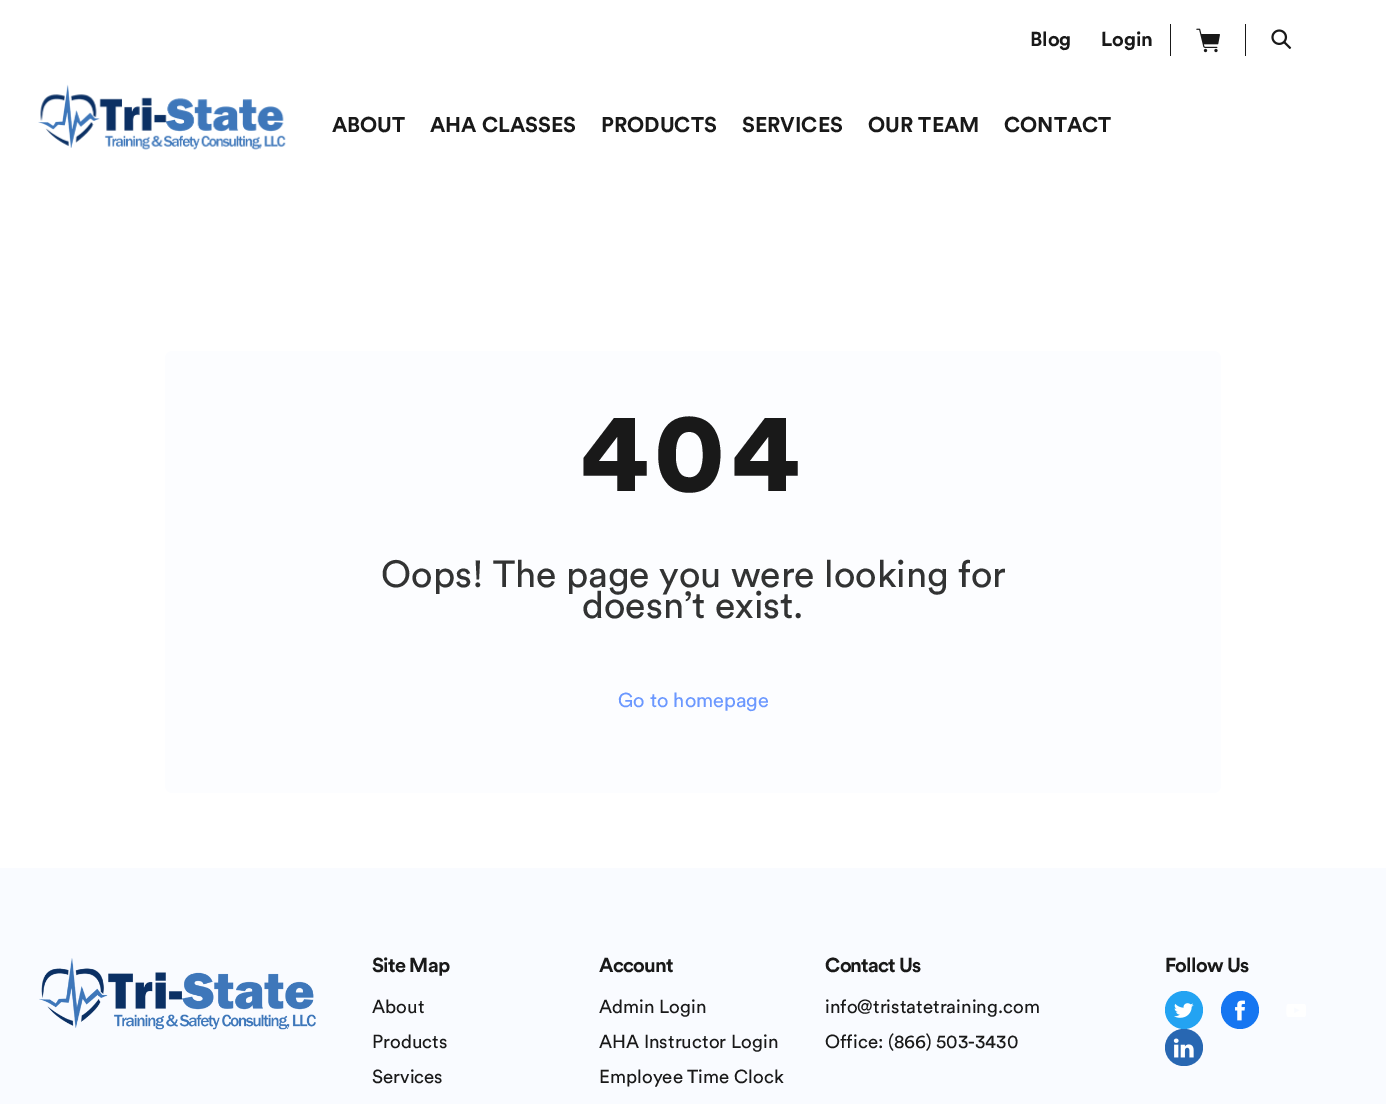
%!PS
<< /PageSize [1386 1104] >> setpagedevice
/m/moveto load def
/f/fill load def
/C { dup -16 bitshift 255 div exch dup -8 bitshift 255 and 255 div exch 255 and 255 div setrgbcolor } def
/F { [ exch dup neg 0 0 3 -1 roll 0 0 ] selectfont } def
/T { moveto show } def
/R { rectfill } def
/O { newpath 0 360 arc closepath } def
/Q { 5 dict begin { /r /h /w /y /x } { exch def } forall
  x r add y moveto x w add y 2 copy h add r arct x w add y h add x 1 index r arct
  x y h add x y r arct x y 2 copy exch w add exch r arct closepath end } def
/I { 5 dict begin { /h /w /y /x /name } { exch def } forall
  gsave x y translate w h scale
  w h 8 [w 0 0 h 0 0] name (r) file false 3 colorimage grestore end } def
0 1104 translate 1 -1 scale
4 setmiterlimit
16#FFFFFF C
0 0 1386 1104 R
/Circular-Bold 20 F
16#191919 C
(Blog) 1030 46 T
(Login) 1101 46 T
1245 24 1 32 R
1170 24 1 32 R
(1.rgb) 1196 28 24 25 I
(2.rgb) 1271 29 21 20 I
(3.rgb) 38 84 248 66 I
/Circular-Bold 21.25 F
(ABOUT) 332 132 T
(AHA CLASSES) 430 132 T
(PRODUCTS) 601 132 T
(SERVICES) 742 132 T
(OUR TEAM) 868 132 T
(CONTACT) 1004 132 T
16#FCFDFF C
165 351 1056 442 8 Q f
/Circular-Black 112.5 F
16#191919 C
580 491 m 6 0 (404) ashow
/Circular-Regular 37.5 F
16#323333 C
(Oops! The page you were looking for) 381 587 T
(doesn’t exist.) 582 618 T
/Circular-Regular 20 F
16#6B98FF C
(Go to homepage) 618 707 T
16#F9FBFF C
0 868 1386 236 R
(4.rgb) 39 958 277 72 I
/Circular-Bold 20 F
16#191919 C
372 972 m -.75 0 (Site Map) ashow
/Circular-Regular 18.75 F
(About) 372 1013 T
(Products) 372 1048 T
(Services) 372 1083 T
/Circular-Bold 20 F
599 972 m -.75 0 (Account) ashow
/Circular-Regular 18.75 F
(Admin Login) 599 1013 T
(AHA Instructor Login) 599 1048 T
(Employee Time Clock) 599 1083 T
/Circular-Bold 20 F
825 972 m -.75 0 (Contact Us) ashow
/Circular-Regular 18.75 F
(info@tristatetraining.com) 825 1013 T
(Office: \(866\) 503-3430) 825 1048 T
/Circular-Bold 20 F
1165 972 m -.75 0 (Follow Us) ashow
16#23A3F2 C
1184 1010 19 O f
(5.rgb) 1174 1003 20 15 I
16#1676F1 C
1240 1010 19 O f
(6.rgb) 1235 1000 10 21 I
(7.rgb) 1286 1004 20 13 I
16#2867B2 C
1165 1029 38 37 18.5 Q f
(8.rgb) 1173 1038 21 20 I
showpage
